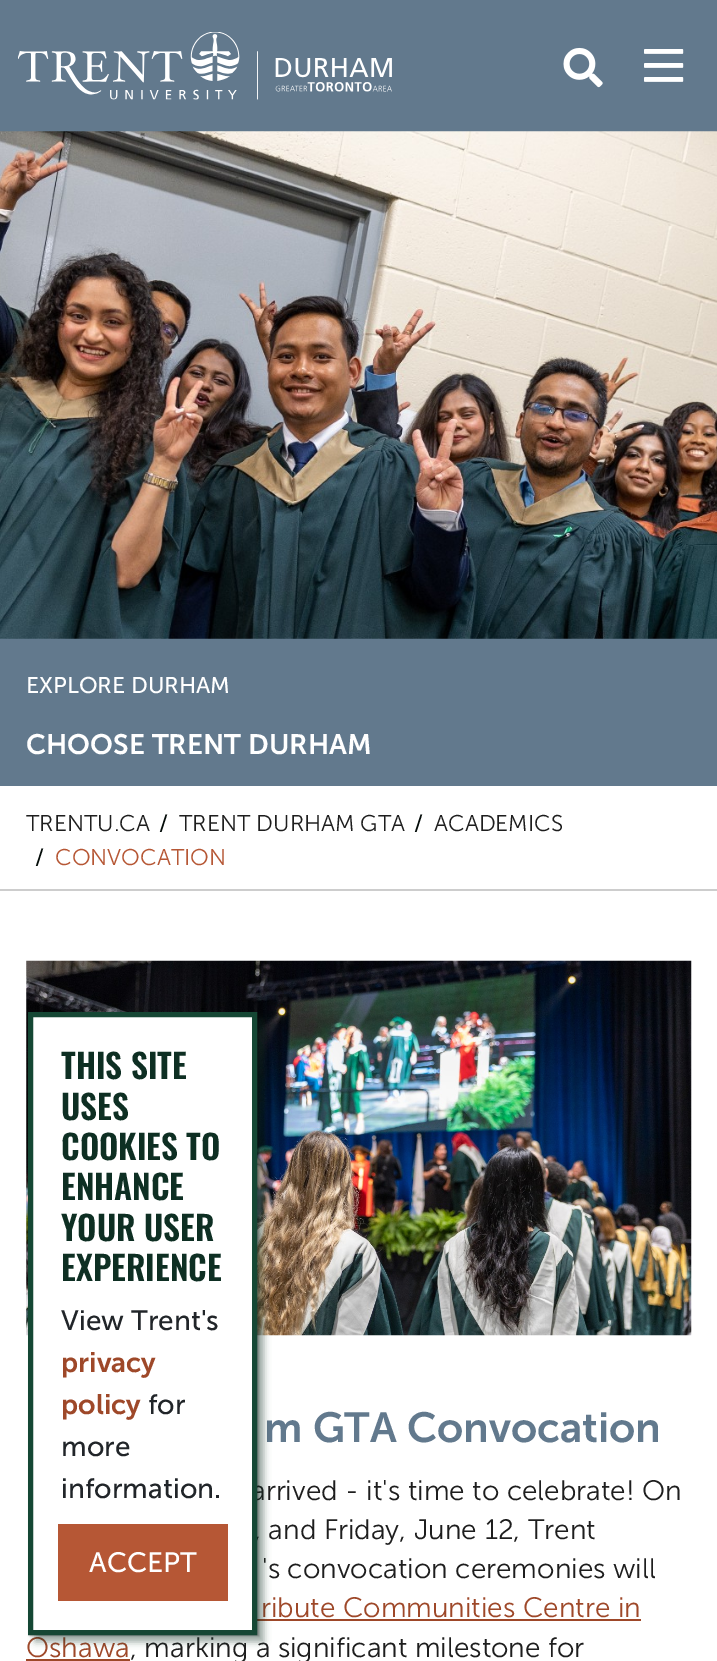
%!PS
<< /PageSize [717 1661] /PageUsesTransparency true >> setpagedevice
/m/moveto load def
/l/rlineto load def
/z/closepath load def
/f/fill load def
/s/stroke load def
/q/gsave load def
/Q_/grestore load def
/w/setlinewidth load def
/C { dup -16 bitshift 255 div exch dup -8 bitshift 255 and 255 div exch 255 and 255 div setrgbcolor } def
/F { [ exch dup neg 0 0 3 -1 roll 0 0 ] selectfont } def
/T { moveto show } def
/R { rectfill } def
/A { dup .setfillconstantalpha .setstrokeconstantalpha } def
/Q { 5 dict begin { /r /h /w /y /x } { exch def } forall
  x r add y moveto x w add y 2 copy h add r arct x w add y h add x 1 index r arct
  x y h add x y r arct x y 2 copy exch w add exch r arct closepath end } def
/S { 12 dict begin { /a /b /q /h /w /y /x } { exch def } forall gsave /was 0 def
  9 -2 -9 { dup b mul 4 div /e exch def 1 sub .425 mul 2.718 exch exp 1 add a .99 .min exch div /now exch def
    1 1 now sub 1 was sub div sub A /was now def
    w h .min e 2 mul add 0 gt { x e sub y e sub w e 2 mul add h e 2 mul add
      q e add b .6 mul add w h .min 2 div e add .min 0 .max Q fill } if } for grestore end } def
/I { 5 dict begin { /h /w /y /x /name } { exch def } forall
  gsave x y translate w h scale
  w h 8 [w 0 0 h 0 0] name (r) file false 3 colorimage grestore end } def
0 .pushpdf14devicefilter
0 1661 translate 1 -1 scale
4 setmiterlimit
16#FFFFFF C
0 0 717 1661 R
16#62798D C
0 0 717 131 R
(1.rgb) 18 32 374 68 I
(2.rgb) 563 47 40 41 I
(3.rgb) 644 49 40 33 I
(4.rgb) 0 131 717 508 I
0 639 717 147 R
/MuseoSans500-Regular 22.75 F
16#FFFFFF C
(EXPLORE DURHAM) 26 693 T
/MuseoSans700-SemiBold 28 F
(CHOOSE TRENT DURHAM) 26 754 T
16#CDCDCD C
0 889 717 2 R
/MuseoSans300-Light 22.75 F
16#1E1E1E C
(TRENTU.CA) 26 831 T
/MuseoSans500-Regular 22 F
16#040C09 C
(/) 159 831 T
/MuseoSans300-Light 22.75 F
16#1E1E1E C
(TRENT DURHAM GTA) 179 831 T
/MuseoSans500-Regular 22 F
16#040C09 C
(/) 414 831 T
/MuseoSans300-Light 22.75 F
16#1E1E1E C
(ACADEMICS) 434 831 T
/MuseoSans500-Regular 22 F
16#040C09 C
(/) 35 865 T
/MuseoSans300-Light 22.75 F
16#B65735 C
(CONVOCATION) 55 865 T
(5.rgb) 26 960 666 376 I
/MuseoSans700-SemiBold 42 F
16#62798D C
(m GTA Convocation) 264 1442 T
/MuseoSans300-Light 28 F
16#1E1E1E C
(arrived - it's time to celebrate! On) 251 1500 T
(, and Friday, June 12, Trent) 254 1539 T
('s convocation ceremonies will) 262 1578 T
16#9E4829 C
(ribute Communities Centre in) 261 1617 T
257 1619 384 2 R
(Oshawa) 26 1657 T
26 1659 104 2 R
16#1E1E1E C
(, marking a significant milestone for) 130 1657 T
16#0E2F23 C
35 1019 229 623 0 3.5 .4 S
16#000000 C
30 1013 229 623 0 1 .3 S
16#FFFFFF C
30.5 1014.5 m 224 0 l 0 618 l -224 0 l z q f Q_
16#154734 C
5 w
s
/Oswald-SemiBold 33.5 F
16#0E2F23 C
(THIS SITE) 61 1079 T
(USES) 61 1120 T
(COOKIES TO) 61 1160 T
(ENHANCE) 61 1200 T
(YOUR USER) 61 1241 T
(EXPERIENCE) 61 1281 T
/MuseoSans500-Regular 28 F
16#212529 C
(View Trent's) 61 1330 T
/MuseoSans700-SemiBold 28 F
16#9E4829 C
(privacy) 61 1372 T
(policy) 61 1414 T
/MuseoSans500-Regular 28 F
16#212529 C
(for) 148 1414 T
(more) 61 1456 T
(information.) 61 1498 T
16#B65735 C
58 1524 170 77 R
16#FFFFFF C
(ACCEPT) 89 1572 T
.poppdf14devicefilter showpage
